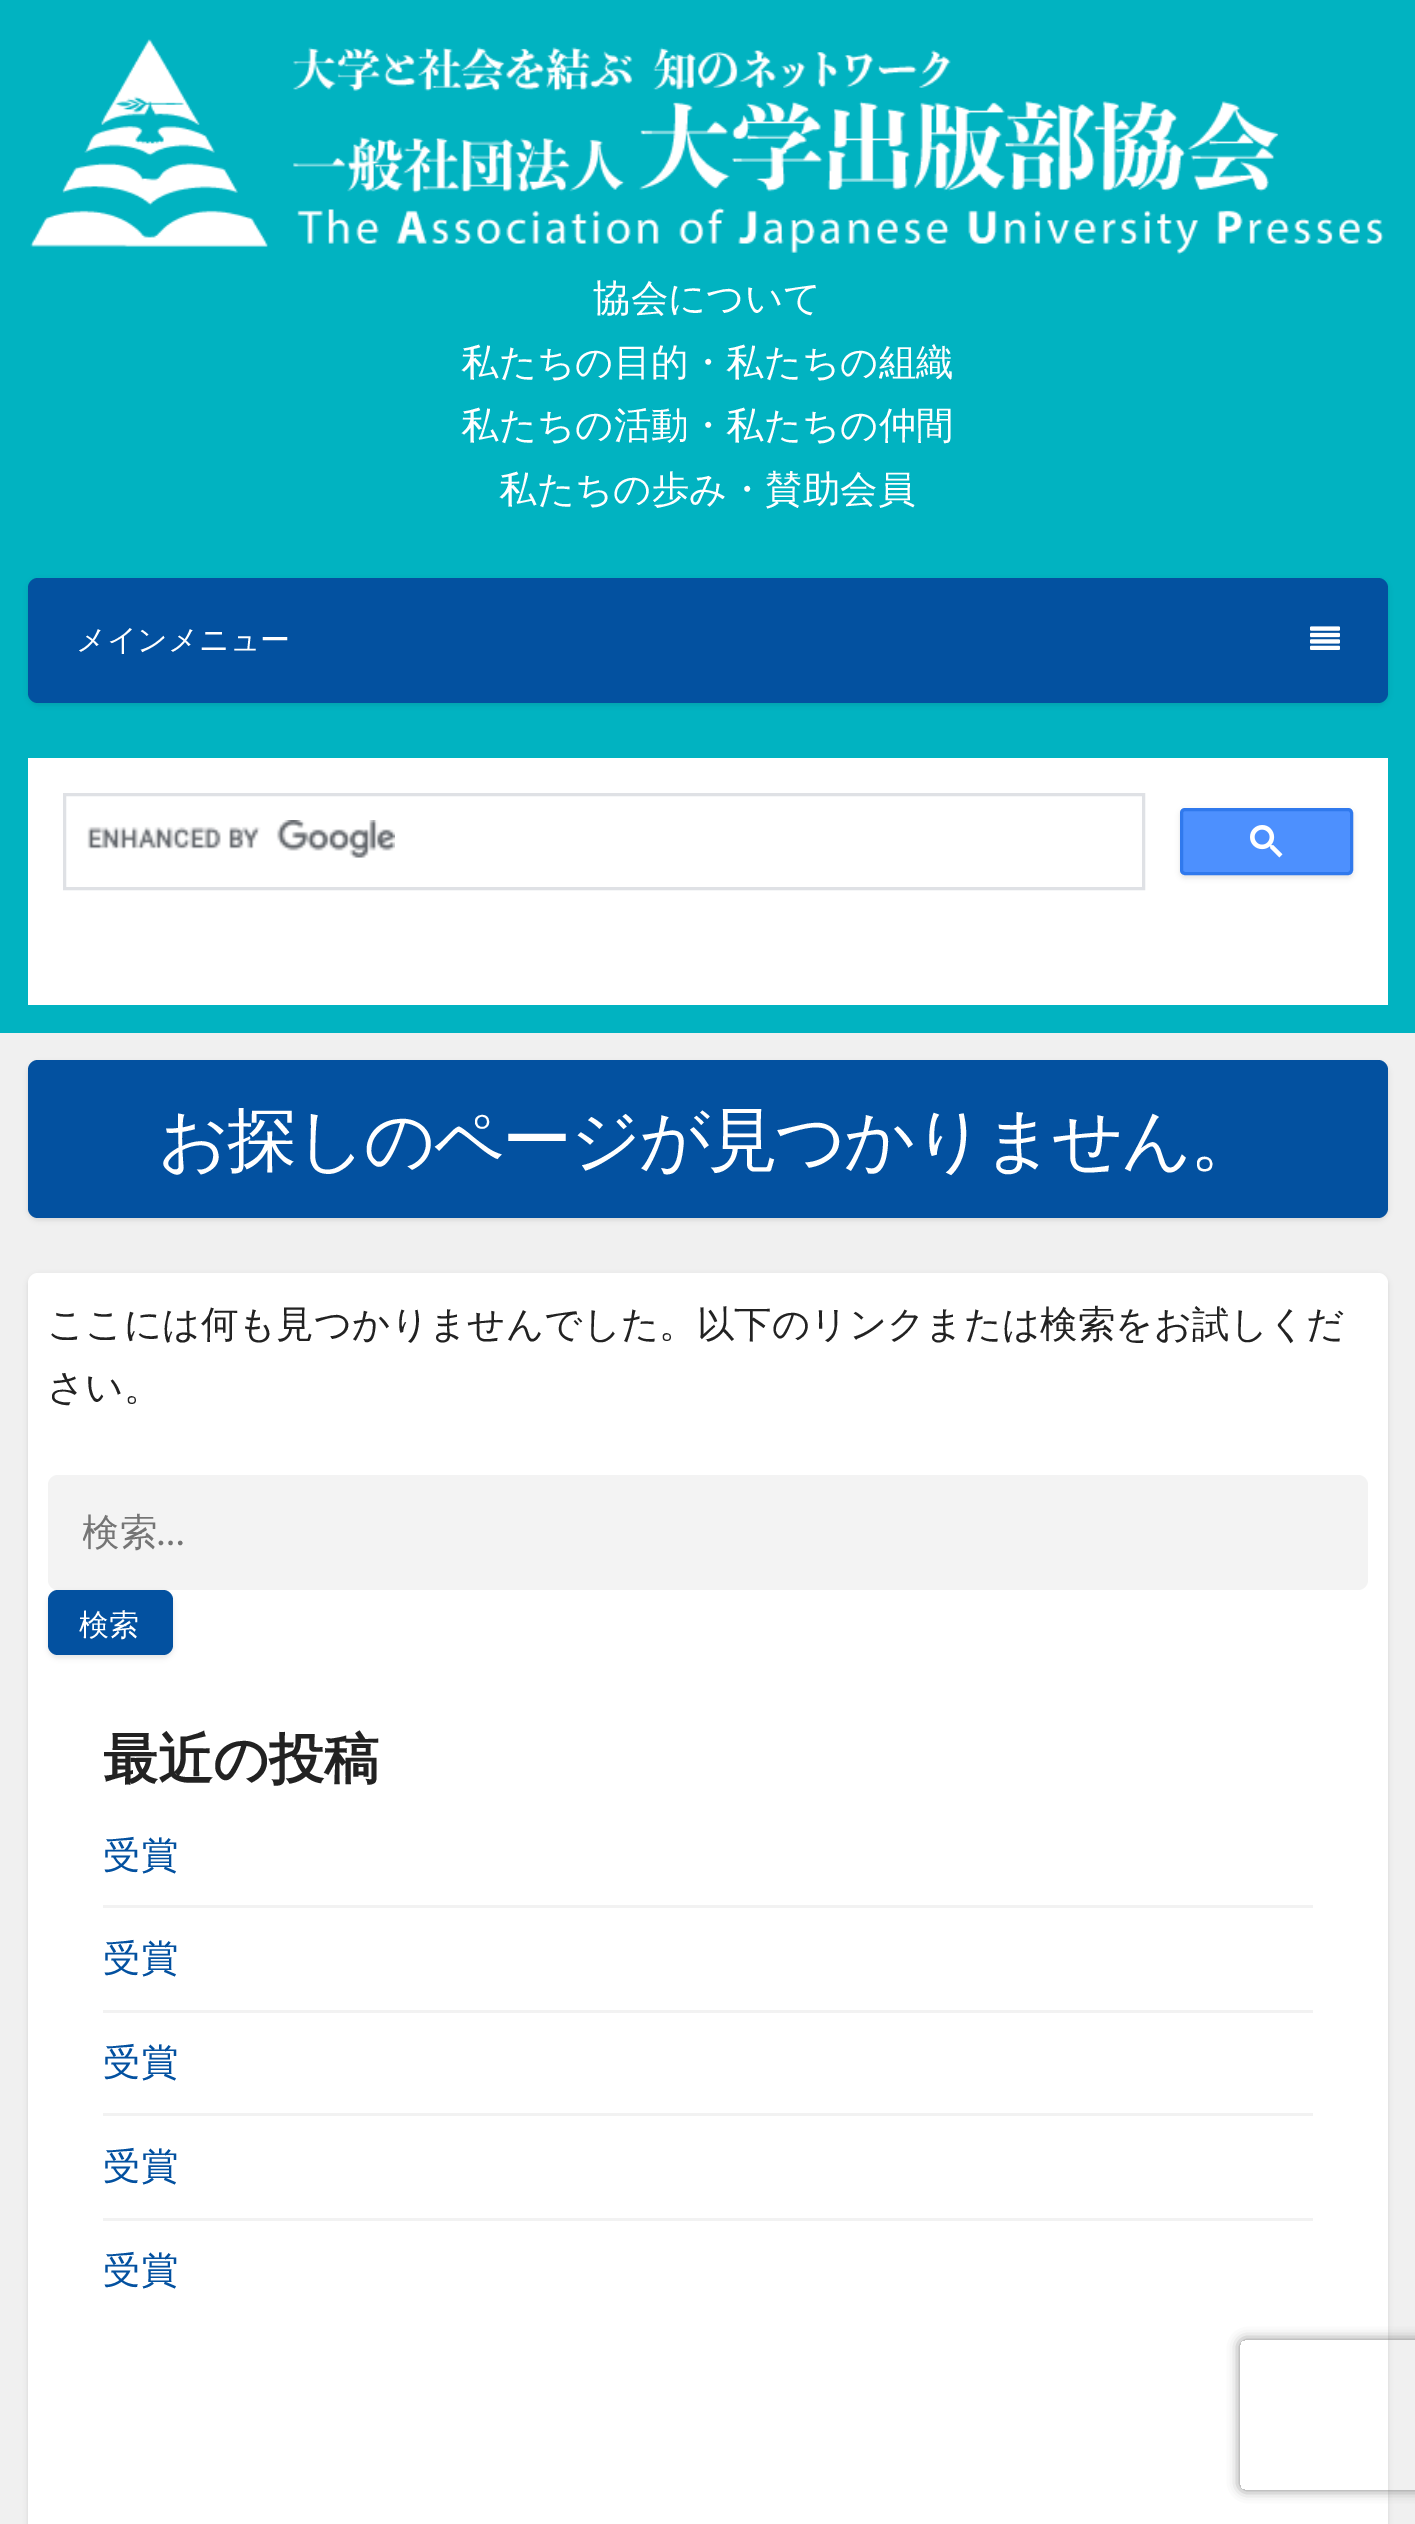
%!PS
<< /PageSize [1415 2524] /PageUsesTransparency true >> setpagedevice
/m/moveto load def
/l/rlineto load def
/c/rcurveto load def
/z/closepath load def
/f/fill load def
/s/stroke load def
/q/gsave load def
/Q_/grestore load def
/w/setlinewidth load def
/C { dup -16 bitshift 255 div exch dup -8 bitshift 255 and 255 div exch 255 and 255 div setrgbcolor } def
/F { [ exch dup neg 0 0 3 -1 roll 0 0 ] selectfont } def
/T { moveto show } def
/R { rectfill } def
/A { dup .setfillconstantalpha .setstrokeconstantalpha } def
/Q { 5 dict begin { /r /h /w /y /x } { exch def } forall
  x r add y moveto x w add y 2 copy h add r arct x w add y h add x 1 index r arct
  x y h add x y r arct x y 2 copy exch w add exch r arct closepath end } def
/S { 12 dict begin { /a /b /q /h /w /y /x } { exch def } forall gsave /was 0 def
  9 -2 -9 { dup b mul 4 div /e exch def 1 sub .425 mul 2.718 exch exp 1 add a .99 .min exch div /now exch def
    1 1 now sub 1 was sub div sub A /was now def
    w h .min e 2 mul add 0 gt { x e sub y e sub w e 2 mul add h e 2 mul add
      q e add b .6 mul add w h .min 2 div e add .min 0 .max Q fill } if } for grestore end } def
/I { 5 dict begin { /h /w /y /x /name } { exch def } forall
  gsave x y translate w h scale
  w h 8 [w 0 0 h 0 0] name (r) file false 3 colorimage grestore end } def
0 .pushpdf14devicefilter
0 2524 translate 1 -1 scale
4 setmiterlimit
16#F0F0F0 C
0 0 1415 2524 R
16#01B3C1 C
0 0 1415 1033 R
(1.rgb) 30 39 1354 216 I
/WenQuanYiZenHei-Medium 37.5 F
16#FFFFFF C
(協会について) 593 311 T
(私たちの目的・私たちの組織) 461 375 T
(私たちの活動・私たちの仲間) 461 438 T
(私たちの歩み・賛助会員) 499 502 T
16#000000 C
28 580 1360 125 10 2.5 .1 S
16#0351A0 C
28 578 1360 125 10 Q f
/WenQuanYiZenHei-Medium 30 F
16#FFFFFF C
(メインメニュー) 76 650 T
(2.rgb) 1310 626 30 24 I
28 758 1360 247 R
16#DFE1E5 C
3 w
64.5 794.5 1079 94 rectstroke
(3.rgb) 87 820 308 38 I
16#000000 C
1180 810 173 68 5 2.5 .1 S
16#4D90FE C
1181.5 809.5 170 64 3.5 Q q f Q_
16#3079ED C
s
(4.rgb) 1250 825 33 33 I
16#000000 C
28 1063 1360 157 10 2.5 .1 S
16#0351A0 C
28 1060 1360 158 10 Q f
/WenQuanYiZenHei-Medium 70 F
16#FFFFFF C
158 1164 m -2.5 0 (お探しのページが見つかりません。) ashow
16#000000 C
28 1275 1360 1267 10 2.5 .1 S
16#FFFFFF C
28 1273 1360 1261 10 Q f
/WenQuanYiZenHei-Medium 37.5 F
16#222222 C
(ここには何も見つかりませんでした。以下のリンクまたは検索をお試しくだ) 47 1337 T
(さい。) 47 1400 T
16#F3F3F3 C
48 1475 1320 115 10 Q f
q
83 1508 1215 50 rectclip
16#757575 C
(検索) 82 1545 T
Q_
/Lato-Regular 37.5 F
16#757575 C
(…) 157 1545 T
16#000000 C
48 1593 125 65 10 2.5 .1 S
16#0351A0 C
48 1590 125 65 10 Q f
/WenQuanYiZenHei-Medium 30 F
16#FFFFFF C
(検索) 79 1635 T
/WenQuanYiZenHei-Bold 55 F
16#222222 C
(最近の投稿) 103 1778 T
16#F2F2F2 C
103 1905 1210 3 R
/WenQuanYiZenHei-Medium 37.5 F
16#0351A0 C
(受賞) 103 1868 T
16#F2F2F2 C
103 2010 1210 3 R
16#0351A0 C
(受賞) 103 1971 T
16#F2F2F2 C
103 2113 1210 3 R
16#0351A0 C
(受賞) 103 2075 T
16#F2F2F2 C
103 2218 1210 3 R
16#0351A0 C
(受賞) 103 2179 T
(受賞) 103 2283 T
q
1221 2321 m 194 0 l 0 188 l -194 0 l z 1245 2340 m 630 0 l 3 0 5 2 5 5 c 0 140 l 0 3 -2 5 -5 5 c -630 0 l -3 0 -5 -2 -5 -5 c 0 -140 l 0 -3 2 -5 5 -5 c z eoclip newpath
16#808080 C
1240 2340 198 150 5 6 1 S
Q_
.poppdf14devicefilter showpage
